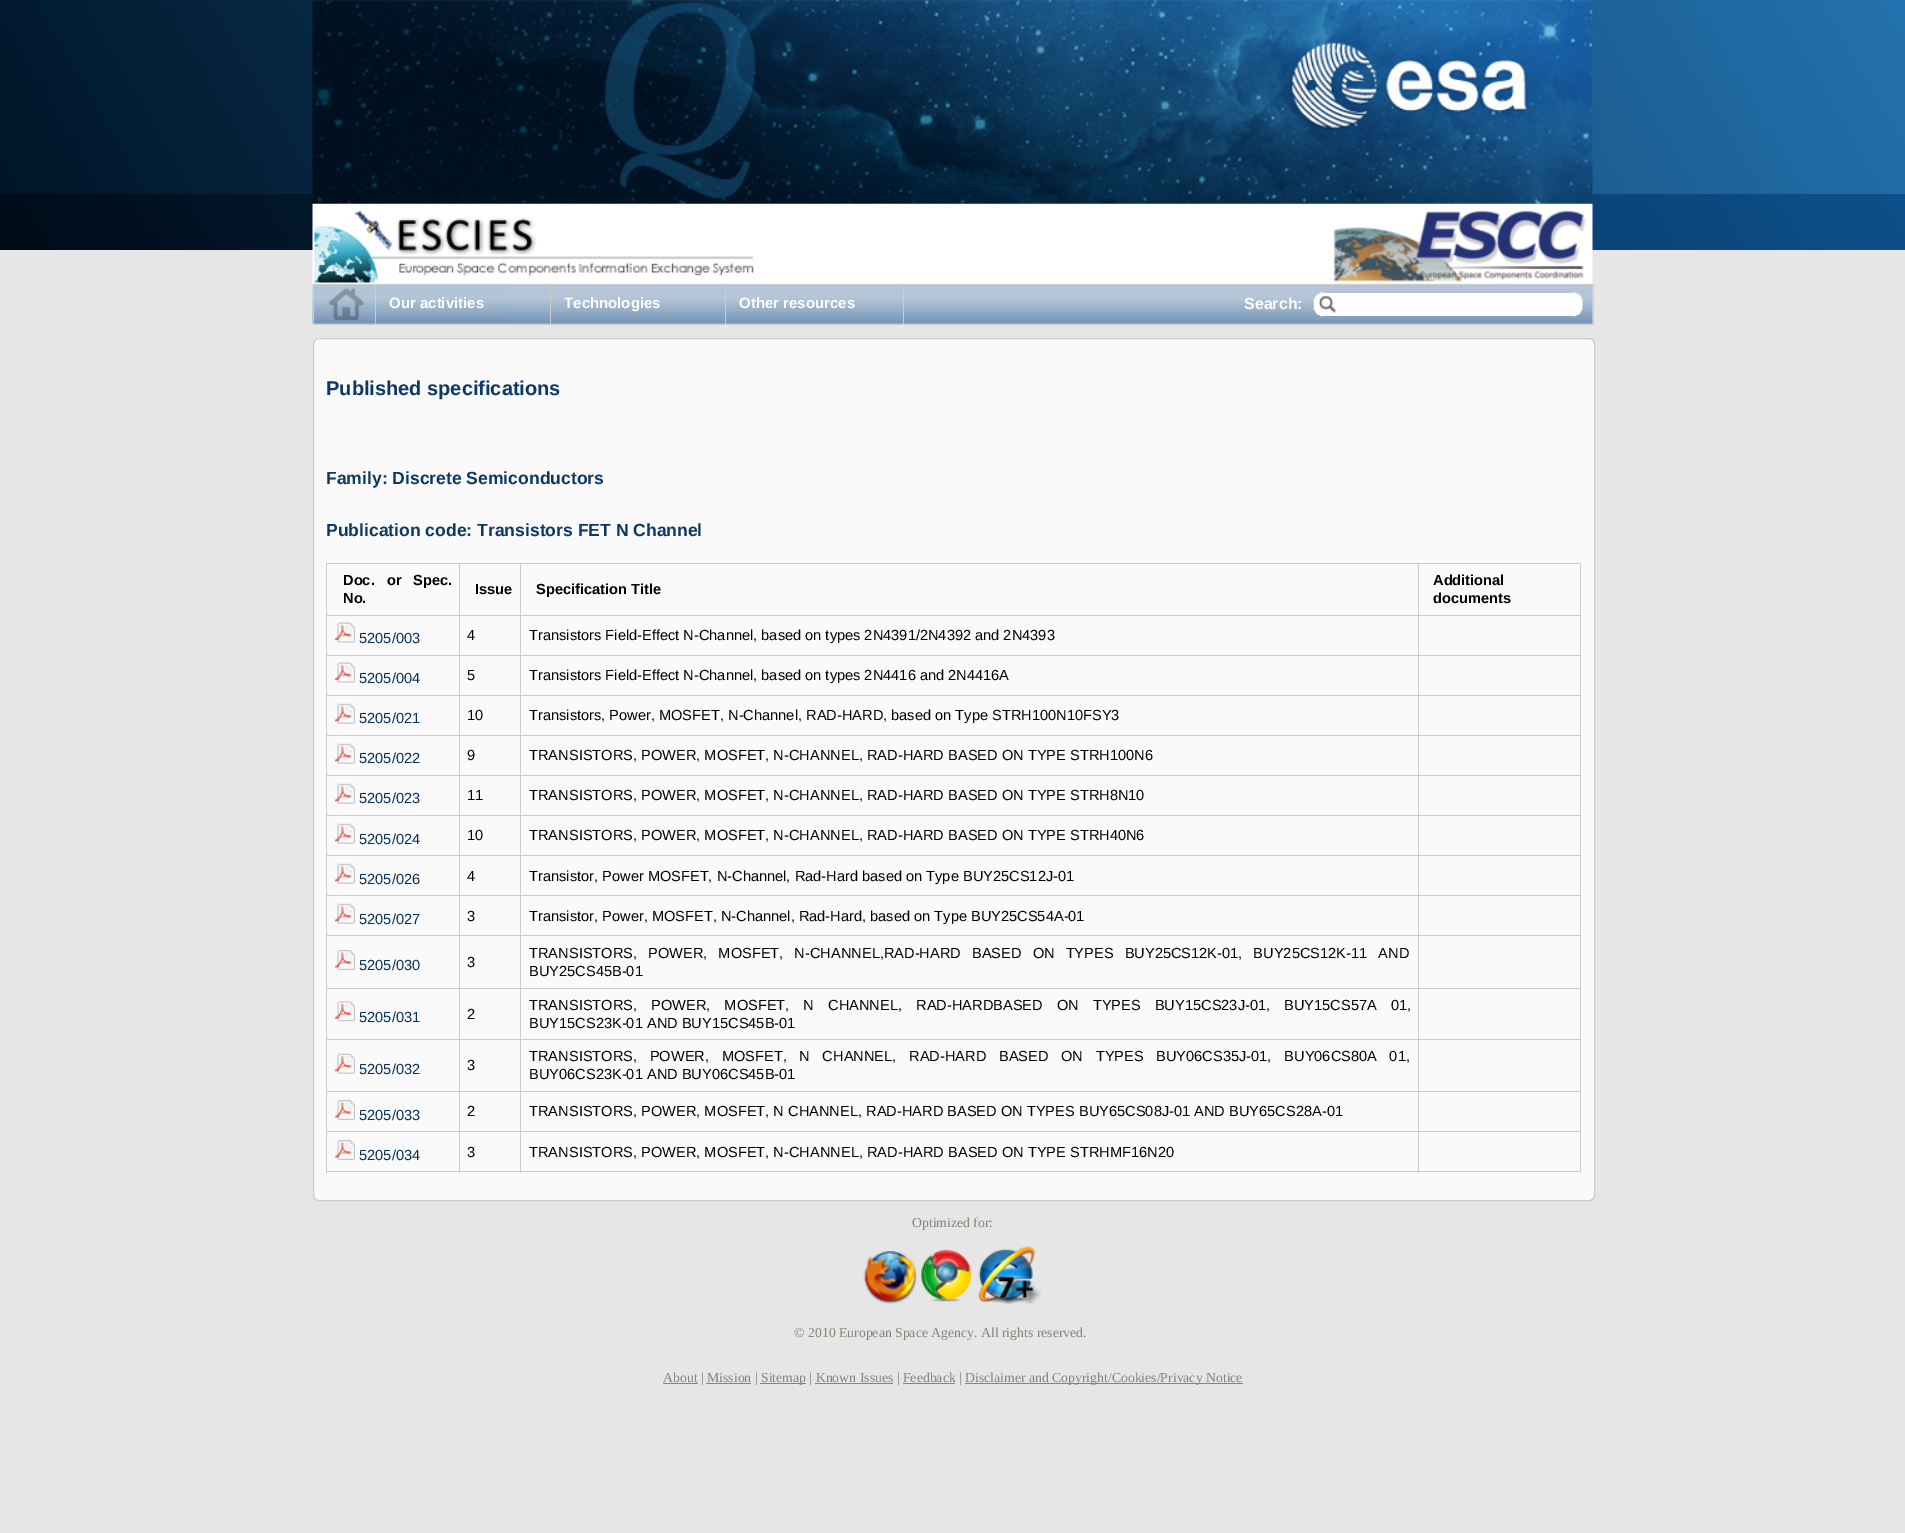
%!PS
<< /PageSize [1905 1533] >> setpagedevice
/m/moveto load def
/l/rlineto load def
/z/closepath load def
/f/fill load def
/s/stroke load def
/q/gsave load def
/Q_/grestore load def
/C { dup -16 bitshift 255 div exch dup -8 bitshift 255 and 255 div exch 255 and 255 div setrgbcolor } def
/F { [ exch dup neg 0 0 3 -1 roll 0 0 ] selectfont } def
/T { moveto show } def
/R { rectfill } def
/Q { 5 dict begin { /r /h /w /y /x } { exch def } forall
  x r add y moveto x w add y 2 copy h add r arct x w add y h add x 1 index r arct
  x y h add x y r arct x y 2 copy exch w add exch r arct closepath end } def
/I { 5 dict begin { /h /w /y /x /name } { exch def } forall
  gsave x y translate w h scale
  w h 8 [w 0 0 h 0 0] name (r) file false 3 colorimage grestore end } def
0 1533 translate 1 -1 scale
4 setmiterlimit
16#E6E6E6 C
0 0 1905 1533 R
q 0 0 m 1905 0 l 0 194 l -1905 0 l z clip newpath
<< /ShadingType 2 /ColorSpace /DeviceRGB /Coords [196 534 1709 -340] /Extend [true true] /Function << /FunctionType 2 /Domain [0 1] /C0 [0 .082 .157] /C1 [.141 .447 .686] /N 1 >> >> shfill Q_
q 0 194 m 1905 0 l 0 56 l -1905 0 l z clip newpath
<< /ShadingType 2 /ColorSpace /DeviceRGB /Coords [226 641 1679 -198] /Extend [true true] /Function << /FunctionType 2 /Domain [0 1] /C0 [0 .043 .094] /C1 [.055 .314 .545] /N 1 >> >> shfill Q_
(1.rgb) 312 0 1281 284 I
16#CCCCCC C
313 284 1281 1 R
1593 284 1 41 R
313 324 1281 1 R
(2.rgb) 312 285 1281 39 I
903 285 1 39 R
313 285 1 39 R
(3.rgb) 328 288 36 33 I
375 285 1 39 R
/LiberationSans-Bold 15 F
16#FFFFFF C
(Our activities) 389 308 T
16#CCCCCC C
550 285 1 39 R
16#FFFFFF C
(Technologies) 564 308 T
16#CCCCCC C
725 285 1 39 R
16#FFFFFF C
(Other resources) 739 308 T
(4.rgb) 1313 292 11 25 I
1324 293 249 23 R
(5.rgb) 1572 292 11 25 I
/LiberationSans-Bold 16 F
(Search:) 1244 309 T
(6.rgb) 1318 295 19 19 I
16#FAFAFA C
313.5 338.5 1281 862 5.5 Q q f Q_
16#CCCCCC C
s
/LiberationSans-Bold 20 F
16#0C3863 C
(Published specifications) 326 395 T
/LiberationSans-Bold 17.55 F
(Family: Discrete Semiconductors) 326 484 T
(Publication code: Transistors FET N Channel) 326 536 T
16#CCCCCC C
326 563 1255 1 R
1580 563 1 610 R
326 1171 1255 1 R
326 563 1 610 R
/LiberationSans-Bold 14.62 F
16#000000 C
343 585 m 8 0 32 (Doc. or Spec.) widthshow
(No.) 343 603 T
16#CCCCCC C
1418 615 163 1 R
1418 655 163 1 R
1418 695 163 1 R
1418 735 163 1 R
1418 775 163 1 R
1418 815 163 1 R
1418 855 163 1 R
1418 895 163 1 R
1418 935 163 1 R
1418 988 163 1 R
1418 1039 163 1 R
1418 1091 163 1 R
1418 1131 163 1 R
1418 1131 1 42 R
520 1131 899 1 R
1418 1091 1 42 R
520 1091 899 1 R
1418 1039 1 54 R
520 1039 899 1 R
1418 988 1 52 R
520 988 899 1 R
1418 935 1 54 R
520 935 899 1 R
1418 895 1 41 R
520 895 899 1 R
1418 855 1 41 R
520 855 899 1 R
1418 815 1 41 R
520 815 899 1 R
1418 775 1 41 R
520 775 899 1 R
1418 735 1 41 R
520 735 899 1 R
1418 695 1 41 R
520 695 899 1 R
1418 655 1 41 R
520 655 899 1 R
1418 615 1 41 R
520 615 899 1 R
520 1131 1 42 R
459 1131 62 1 R
520 1091 1 42 R
459 1091 62 1 R
520 1039 1 54 R
459 1039 62 1 R
520 988 1 52 R
459 988 62 1 R
520 935 1 54 R
459 935 62 1 R
520 895 1 41 R
459 895 62 1 R
520 855 1 41 R
459 855 62 1 R
520 815 1 41 R
459 815 62 1 R
520 775 1 41 R
459 775 62 1 R
520 735 1 41 R
459 735 62 1 R
520 695 1 41 R
459 695 62 1 R
520 655 1 41 R
459 655 62 1 R
520 615 1 41 R
459 615 62 1 R
459 1131 1 42 R
326 1131 134 1 R
459 1091 1 42 R
326 1091 134 1 R
459 1039 1 54 R
326 1039 134 1 R
459 988 1 52 R
326 988 134 1 R
459 935 1 54 R
326 935 134 1 R
459 895 1 41 R
326 895 134 1 R
459 855 1 41 R
326 855 134 1 R
459 815 1 41 R
326 815 134 1 R
459 775 1 41 R
326 775 134 1 R
459 735 1 41 R
326 735 134 1 R
459 695 1 41 R
326 695 134 1 R
459 655 1 41 R
326 655 134 1 R
459 615 1 41 R
326 615 134 1 R
459 563 1 53 R
16#000000 C
(Issue) 475 594 T
16#CCCCCC C
520 563 1 53 R
16#000000 C
(Specification Title) 536 594 T
16#CCCCCC C
1418 563 1 53 R
16#000000 C
(Additional) 1433 585 T
(documents) 1433 603 T
(7.rgb) 335 622 20 21 I
/LiberationSans-Regular 14.62 F
16#022F5C C
(5205/003) 359 643 T
16#000000 C
(4) 467 640 T
(Transistors Field-Effect N-Channel, based on types 2N4391/2N4392 and 2N4393) 529 640 T
(7.rgb) 335 662 20 21 I
16#022F5C C
(5205/004) 359 683 T
16#000000 C
(5) 467 680 T
(Transistors Field-Effect N-Channel, based on types 2N4416 and 2N4416A) 529 680 T
(8.rgb) 335 703 20 21 I
16#022F5C C
(5205/021) 359 723 T
16#000000 C
(10) 467 720 T
(Transistors, Power, MOSFET, N-Channel, RAD-HARD, based on Type STRH100N10FSY3) 529 720 T
(8.rgb) 335 743 20 21 I
16#022F5C C
(5205/022) 359 763 T
16#000000 C
(9) 467 760 T
(TRANSISTORS, POWER, MOSFET, N-CHANNEL, RAD-HARD BASED ON TYPE STRH100N6) 529 760 T
(8.rgb) 335 783 20 21 I
16#022F5C C
(5205/023) 359 803 T
16#000000 C
(11) 467 800 T
(TRANSISTORS, POWER, MOSFET, N-CHANNEL, RAD-HARD BASED ON TYPE STRH8N10) 529 800 T
(8.rgb) 335 823 20 21 I
16#022F5C C
(5205/024) 359 844 T
16#000000 C
(10) 467 840 T
(TRANSISTORS, POWER, MOSFET, N-CHANNEL, RAD-HARD BASED ON TYPE STRH40N6) 529 840 T
(8.rgb) 335 863 20 21 I
16#022F5C C
(5205/026) 359 884 T
16#000000 C
(4) 467 881 T
(Transistor, Power MOSFET, N-Channel, Rad-Hard based on Type BUY25CS12J-01) 529 881 T
(8.rgb) 335 903 20 21 I
16#022F5C C
(5205/027) 359 924 T
16#000000 C
(3) 467 921 T
(Transistor, Power, MOSFET, N-Channel, Rad-Hard, based on Type BUY25CS54A-01) 529 921 T
(9.rgb) 335 950 20 20 I
16#022F5C C
(5205/030) 359 970 T
16#000000 C
(3) 467 967 T
529 958 m 7 0 32 (TRANSISTORS, POWER, MOSFET, N-CHANNEL,RAD-HARD BASED ON TYPES BUY25CS12K-01, BUY25CS12K-11 AND) widthshow
(BUY25CS45B-01) 529 976 T
(10.rgb) 335 1001 20 21 I
16#022F5C C
(5205/031) 359 1022 T
16#000000 C
(2) 467 1019 T
529 1010 m 10 0 32 (TRANSISTORS, POWER, MOSFET, N CHANNEL, RAD-HARDBASED ON TYPES BUY15CS23J-01, BUY15CS57A 01,) widthshow
(BUY15CS23K-01 AND BUY15CS45B-01) 529 1028 T
(8.rgb) 335 1053 20 21 I
16#022F5C C
(5205/032) 359 1074 T
16#000000 C
(3) 467 1070 T
529 1061 m 8.6 0 32 (TRANSISTORS, POWER, MOSFET, N CHANNEL, RAD-HARD BASED ON TYPES BUY06CS35J-01, BUY06CS80A 01,) widthshow
(BUY06CS23K-01 AND BUY06CS45B-01) 529 1079 T
(9.rgb) 335 1100 20 20 I
16#022F5C C
(5205/033) 359 1120 T
16#000000 C
(2) 467 1116 T
(TRANSISTORS, POWER, MOSFET, N CHANNEL, RAD-HARD BASED ON TYPES BUY65CS08J-01 AND BUY65CS28A-01) 529 1116 T
(9.rgb) 335 1140 20 20 I
16#022F5C C
(5205/034) 359 1160 T
16#000000 C
(3) 467 1157 T
(TRANSISTORS, POWER, MOSFET, N-CHANNEL, RAD-HARD BASED ON TYPE STRHMF16N20) 529 1157 T
/LiberationSerif-Regular 13.75 F
16#898378 C
(Optimized for:) 912 1227 T
(11.rgb) 863 1251 54 53 I
(12.rgb) 921 1249 51 53 I
(13.rgb) 978 1246 63 58 I
(© 2010 European Space Agency. All rights reserved.) 794 1337 T
663 1383 35 1 R
(About | Mission |) 663 1382 T
760 1383 46 1 R
(Sitemap | Known Issues | Feedback |) 761 1382 T
965 1383 278 1 R
(Disclaimer and Copyright/Cookies/Privacy Notice) 965 1382 T
706 1383 45 1 R
815 1383 78 1 R
903 1383 52 1 R
showpage
